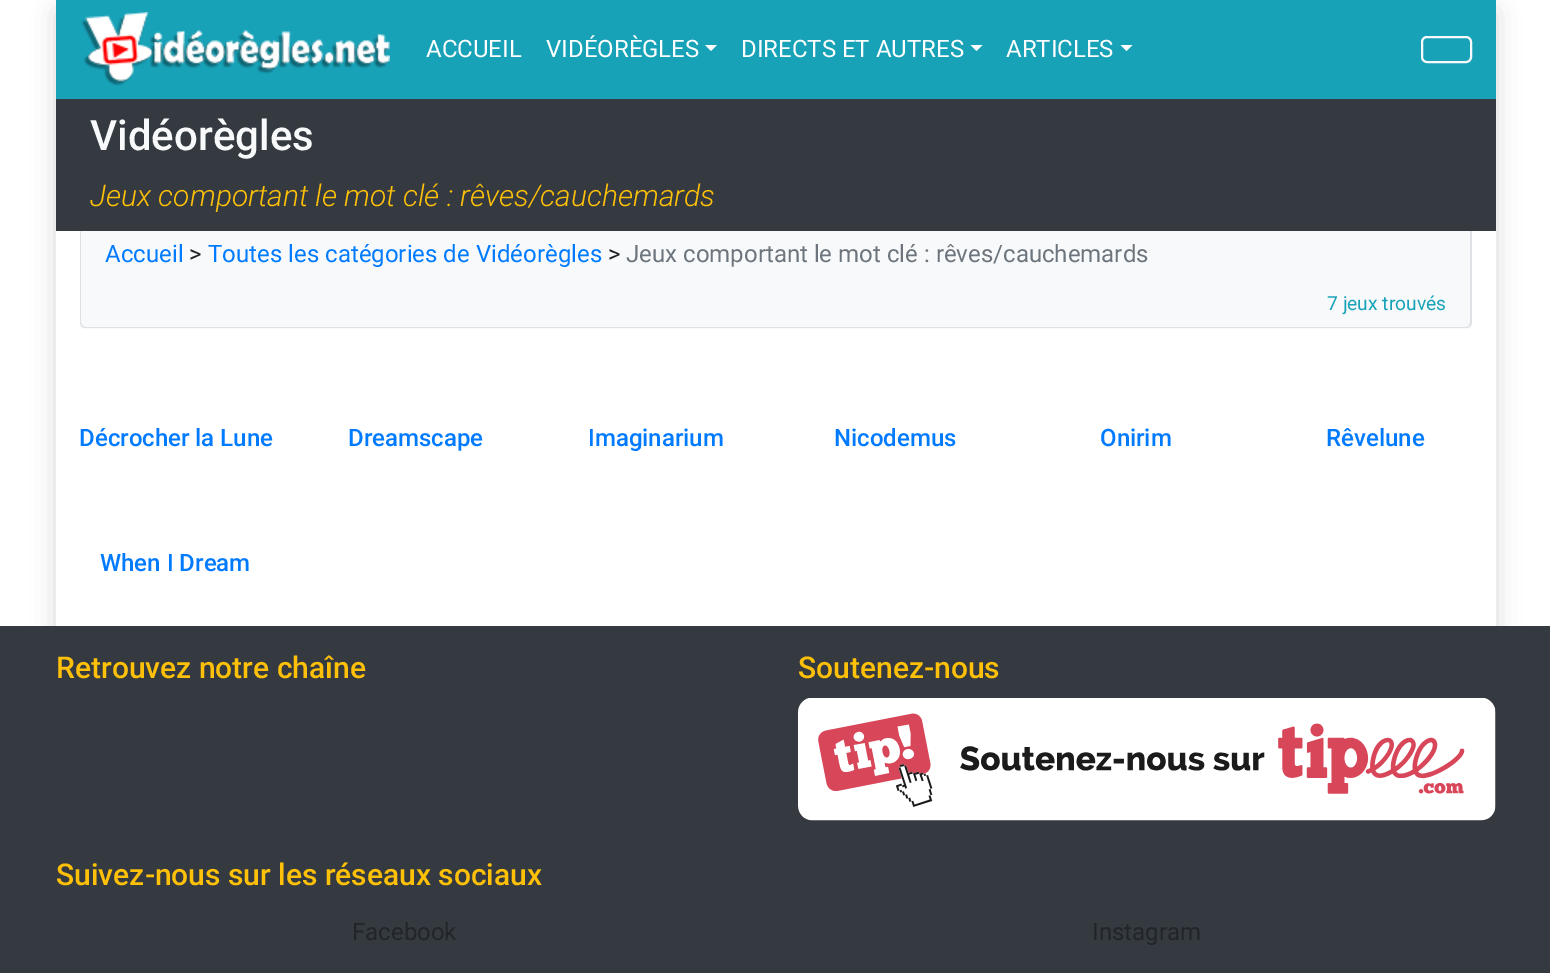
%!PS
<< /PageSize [1550 973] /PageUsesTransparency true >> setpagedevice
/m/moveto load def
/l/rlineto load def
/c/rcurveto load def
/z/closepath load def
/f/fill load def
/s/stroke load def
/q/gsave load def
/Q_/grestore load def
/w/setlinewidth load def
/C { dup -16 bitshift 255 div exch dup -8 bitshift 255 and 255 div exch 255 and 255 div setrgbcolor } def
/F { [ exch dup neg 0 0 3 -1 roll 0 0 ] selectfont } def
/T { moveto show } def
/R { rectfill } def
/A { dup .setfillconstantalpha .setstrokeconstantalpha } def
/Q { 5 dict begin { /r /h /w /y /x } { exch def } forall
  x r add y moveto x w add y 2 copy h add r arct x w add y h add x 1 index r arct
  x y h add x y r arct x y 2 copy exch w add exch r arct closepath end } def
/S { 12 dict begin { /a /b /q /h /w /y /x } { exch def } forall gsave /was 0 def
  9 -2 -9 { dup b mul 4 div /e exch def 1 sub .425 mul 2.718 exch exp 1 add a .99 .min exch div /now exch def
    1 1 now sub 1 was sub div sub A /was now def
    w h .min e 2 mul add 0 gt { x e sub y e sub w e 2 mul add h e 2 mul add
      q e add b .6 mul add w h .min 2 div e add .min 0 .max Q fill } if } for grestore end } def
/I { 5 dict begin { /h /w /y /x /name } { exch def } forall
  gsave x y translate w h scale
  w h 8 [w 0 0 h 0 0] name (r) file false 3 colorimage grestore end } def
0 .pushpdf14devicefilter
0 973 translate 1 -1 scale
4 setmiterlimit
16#FFFFFF C
0 0 1550 973 R
q
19 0 m 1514 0 l 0 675 l -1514 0 l z 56 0 m 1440 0 l 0 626 l -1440 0 l z eoclip newpath
16#000000 C
56 12 1440 626 0 12 .15 S
Q_
16#17A2B8 C
56 0 1440 99 R
(1.rgb) 81 12 309 74 I
/Roboto-Regular 24 F
16#FFFFFF C
(ACCUEIL) 426 57 T
(VIDÉORÈGLES) 546 57 T
705 45 m 12 0 l -6 6 l z f
(DIRECTS ET AUTRES) 741 57 T
970.5 45 m 12 0 l -6 6 l z f
(ARTICLES) 1006 57 T
1120.5 45 m 12 0 l -6 6 l z f
16#F8F9FA C
2 w
1422 37 49 25 5 Q s
16#343A40 C
56 99 1440 132 R
/Roboto-Medium 42 F
16#F8F9FA C
(Vidéorègles) 90 150 T
/Roboto-LightItalic 30 F
16#FFC107 C
(Jeux comportant le mot clé : rêves/cauchemards) 90 206 T
16#F8F9FA C
80 231 m 1392 0 l 0 92 l 0 3.5 -2.5 6 -6 6 c -1380 0 l -3.5 0 -6 -2.5 -6 -6 c z f
16#DEE2E6 C
80 231 m 1392 0 l 0 91 l 0 4 -3 6 -6 6 c -1380 0 l -4 0 -6 -2 -6 -6 c z 81 231 m 1389 0 l 0 91 l 0 3 -2 5 -4 5 c -1380 0 l -3 0 -5 -2 -5 -5 c z eofill
/Roboto-Regular 24 F
16#007BFF C
(Accueil) 105 262 T
16#212529 C
(>) 189 262 T
16#007BFF C
(Toutes les catégories de Vidéorègles) 208 262 T
16#212529 C
(>) 608 262 T
16#6C757D C
(Jeux comportant le mot clé : rêves/cauchemards) 626 262 T
/Roboto-Regular 19.25 F
16#17A2B8 C
(7 jeux trouvés) 1327 310 T
/Roboto-Medium 24 F
16#007BFF C
(Décrocher la Lune) 79 446 T
(Dreamscape) 348 446 T
(Imaginarium) 588 446 T
(Nicodemus) 834 446 T
(Onirim) 1100 446 T
(Rêvelune) 1326 446 T
(When I Dream) 100 571 T
16#343A40 C
0 626 1550 347 R
/Roboto-Medium 30 F
16#FFC107 C
(Retrouvez notre chaîne) 56 678 T
(Soutenez-nous) 798 678 T
(2.rgb) 798 698 698 123 I
(Suivez-nous sur les réseaux sociaux) 56 885 T
/Roboto-Regular 24 F
16#212529 C
(Facebook) 352 940 T
(Instagram) 1092 940 T
.poppdf14devicefilter showpage
